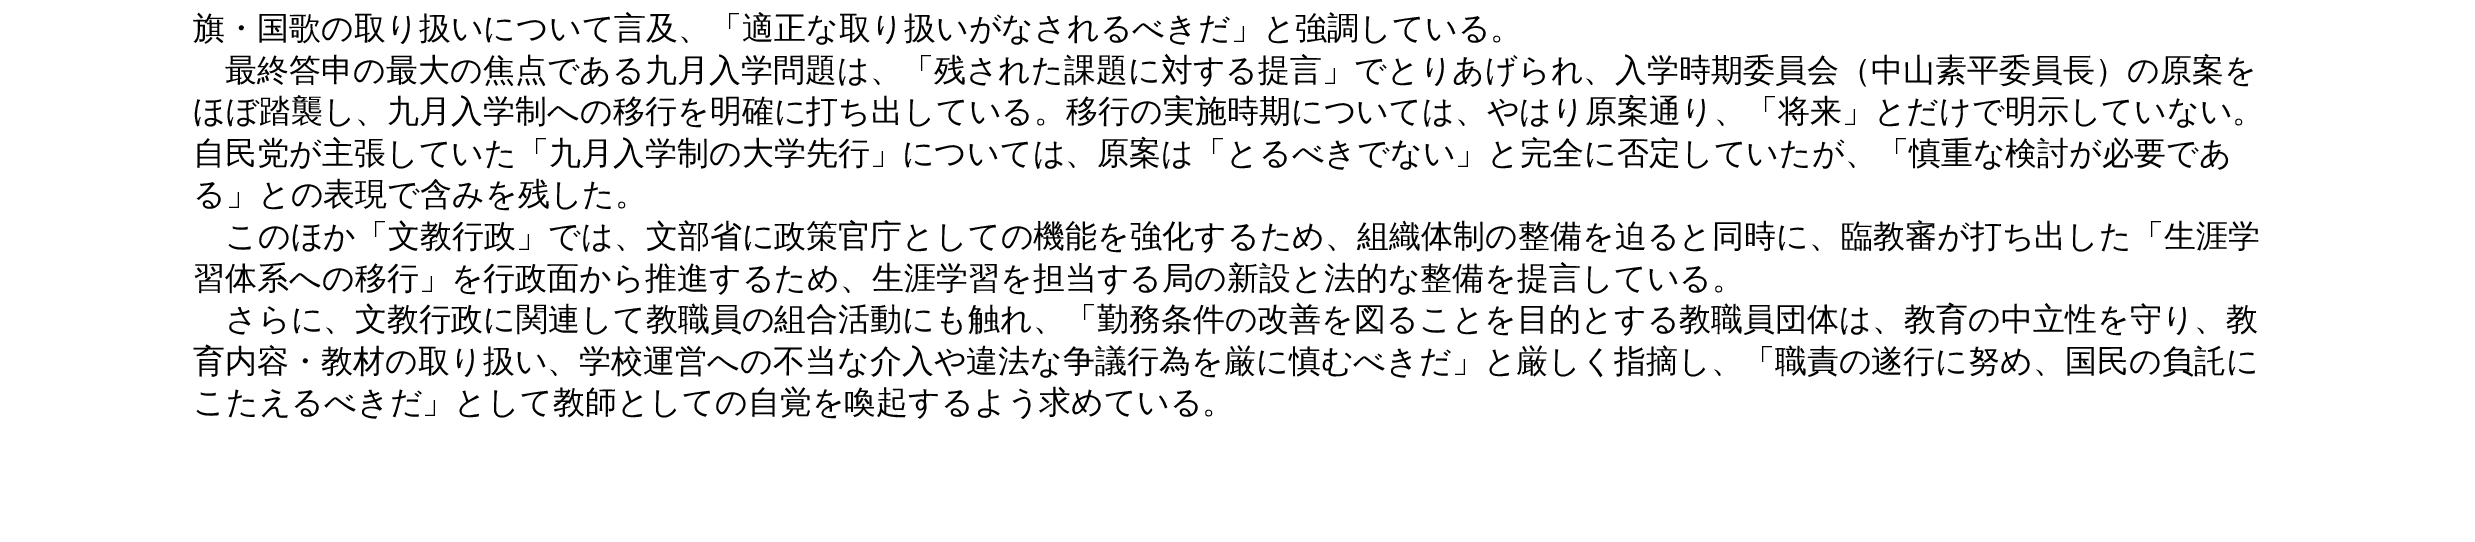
%!PS
<< /PageSize [2475 542] >> setpagedevice
/C { dup -16 bitshift 255 div exch dup -8 bitshift 255 and 255 div exch 255 and 255 div setrgbcolor } def
/F { [ exch dup neg 0 0 3 -1 roll 0 0 ] selectfont } def
/T { moveto show } def
/R { rectfill } def
0 542 translate 1 -1 scale
4 setmiterlimit
16#FFFFFF C
0 0 2475 542 R
/WenQuanYiZenHei-Medium 32 F
16#000000 C
(旗・国歌の取り扱いについて言及、「適正な取り扱いがなされるべきだ」と強調している。) 193 39 T
(最終答申の最大の焦点である九月入学問題は、「残された課題に対する提言」でとりあげられ、入学時期委員会（中山素平委員長）の原案を) 225 81 T
(ほぼ踏襲し、九月入学制への移行を明確に打ち出している。移行の実施時期については、やはり原案通り、「将来」とだけで明示していない。) 193 122 T
(自民党が主張していた「九月入学制の大学先行」については、原案は「とるべきでない」と完全に否定していたが、「慎重な検討が必要であ) 193 164 T
(る」との表現で含みを残した。) 193 205 T
(このほか「文教行政」では、文部省に政策官庁としての機能を強化するため、組織体制の整備を迫ると同時に、臨教審が打ち出した「生涯学) 225 247 T
(習体系への移行」を行政面から推進するため、生涯学習を担当する局の新設と法的な整備を提言している。) 193 289 T
(さらに、文教行政に関連して教職員の組合活動にも触れ、「勤務条件の改善を図ることを目的とする教職員団体は、教育の中立性を守り、教) 225 330 T
(育内容・教材の取り扱い、学校運営への不当な介入や違法な争議行為を厳に慎むべきだ」と厳しく指摘し、「職責の遂行に努め、国民の負託に) 193 372 T
(こたえるべきだ」として教師としての自覚を喚起するよう求めている。) 193 413 T
showpage
